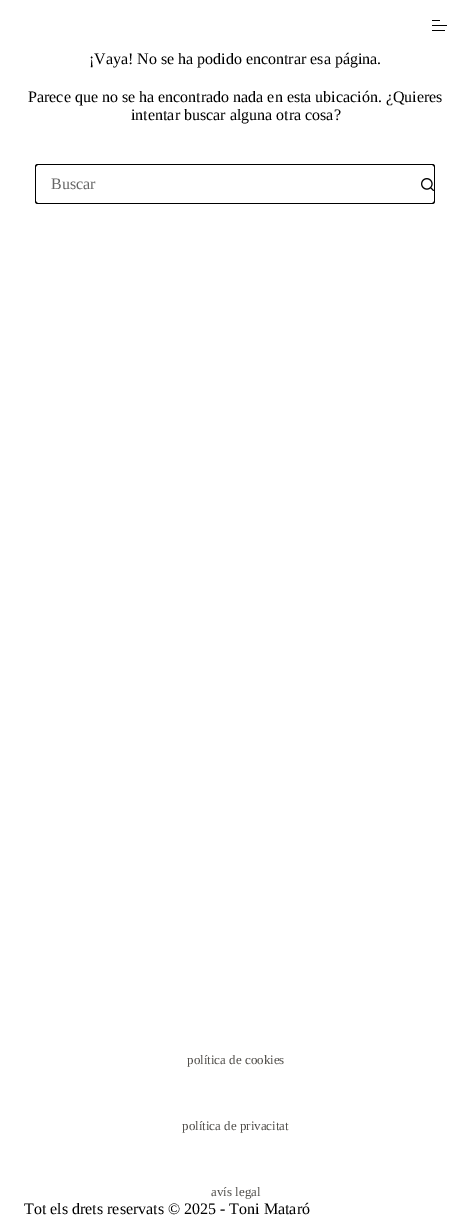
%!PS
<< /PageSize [471 1218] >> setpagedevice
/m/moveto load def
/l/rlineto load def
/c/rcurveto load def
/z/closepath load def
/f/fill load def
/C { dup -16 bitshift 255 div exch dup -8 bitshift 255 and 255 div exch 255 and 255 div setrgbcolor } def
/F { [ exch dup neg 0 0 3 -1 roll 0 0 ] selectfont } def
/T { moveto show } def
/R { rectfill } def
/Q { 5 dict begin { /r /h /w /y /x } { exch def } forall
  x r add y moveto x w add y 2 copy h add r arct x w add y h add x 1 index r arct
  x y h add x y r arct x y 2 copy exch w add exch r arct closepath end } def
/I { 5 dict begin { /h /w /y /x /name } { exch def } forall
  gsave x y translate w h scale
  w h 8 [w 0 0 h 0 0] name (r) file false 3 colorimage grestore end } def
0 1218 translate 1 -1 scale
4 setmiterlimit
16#FFFFFF C
0 0 471 1218 R
16#000000 C
432 20 8 1 .5 Q f
432 25 15 1 .5 Q f
432 30 13 1 .5 Q f
/LiberationSerif-Regular 16 F
(¡Vaya! No se ha podido encontrar esa página.) 89 64 T
(Parece que no se ha encontrado nada en esta ubicación. ¿Quieres) 28 102 T
(intentar buscar alguna otra cosa?) 131 120 T
38 164 m 383 0 l 0 40 l -383 0 l -2 0 -3 -1 -3 -3 c 0 -34 l 0 -2 1 -3 3 -3 c z 38 165 m 383 0 l 0 38 l -383 0 l -1 0 -2 -1 -2 -2 c 0 -34 l 0 -1 1 -2 2 -2 c z eofill
16#666666 C
(Buscar) 51 189 T
16#000000 C
421 164 m 11 0 l 2 0 3 1 3 3 c 0 34 l 0 2 -1 3 -3 3 c -11 0 l z 421 165 m 11 0 l 1 0 2 1 2 2 c 0 34 l 0 1 -1 2 -2 2 c -11 0 l z eofill
(1.rgb) 421 178 13 13 I
/LiberationSerif-Regular 13 F
16#504E4A C
(política de cookies) 187 1064 T
(política de privacitat) 182 1130 T
(avís legal) 211 1196 T
/LiberationSerif-Regular 16 F
16#000000 C
(Tot els drets reservats © 2025 - Toni Mataró) 24 1214 T
showpage
